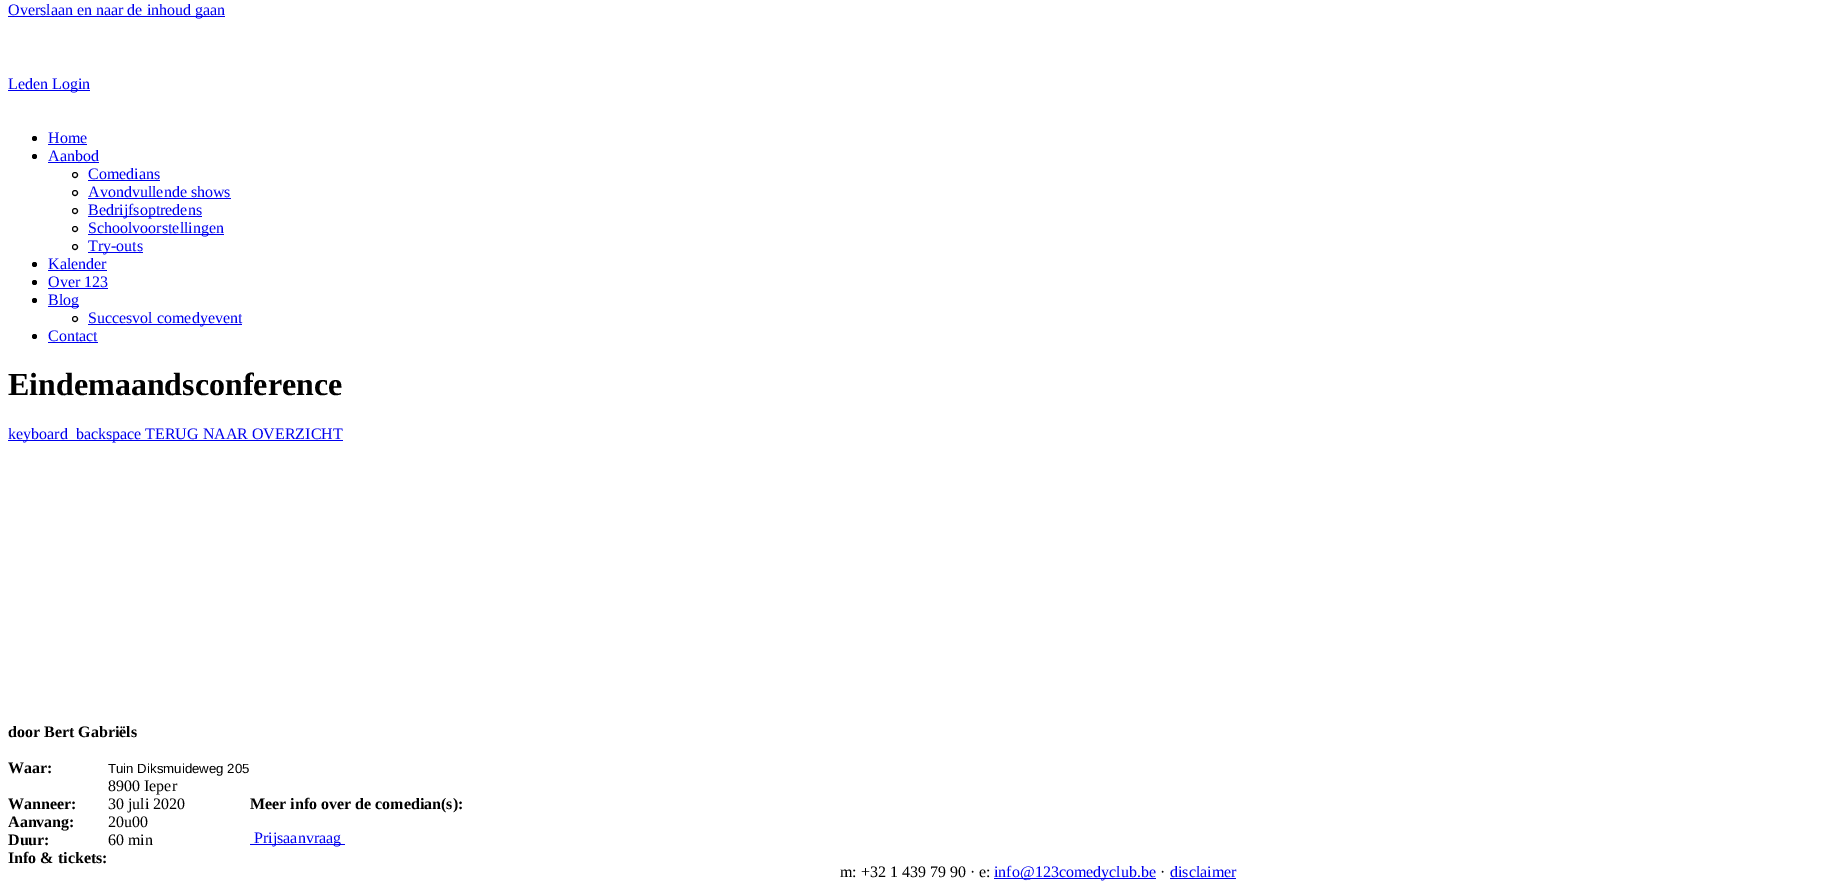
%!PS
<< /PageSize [1834 889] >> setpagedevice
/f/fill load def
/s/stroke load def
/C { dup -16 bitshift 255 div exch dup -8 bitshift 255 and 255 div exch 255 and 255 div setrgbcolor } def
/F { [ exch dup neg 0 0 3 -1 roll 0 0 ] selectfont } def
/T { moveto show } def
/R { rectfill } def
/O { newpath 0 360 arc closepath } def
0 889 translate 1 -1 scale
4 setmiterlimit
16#FFFFFF C
0 0 1834 889 R
16#0000EE C
8 16 217 1 R
/LiberationSerif-Regular 16 F
(Overslaan en naar de inhoud gaan) 8 15 T
8 90 82 1 R
(Leden Login) 8 89 T
16#000000 C
34.5 138.5 2.5 O f
16#0000EE C
(Home) 48 143 T
48 144 39 1 R
16#000000 C
34.5 156.5 2.5 O f
16#0000EE C
(Aanbod) 48 161 T
48 162 51 1 R
16#000000 C
75 175 2.5 O s
16#0000EE C
(Comedians) 88 179 T
88 180 72 1 R
16#000000 C
75 193 2.5 O s
16#0000EE C
(Avondvullende shows) 88 197 T
88 198 143 1 R
16#000000 C
75 211 2.5 O s
16#0000EE C
88 216 114 1 R
(Bedrijfsoptredens) 88 215 T
16#000000 C
75 229 2.5 O s
16#0000EE C
88 234 136 1 R
(Schoolvoorstellingen) 88 233 T
16#000000 C
75 247 2.5 O s
16#0000EE C
88 252 55 1 R
(Try-outs) 88 251 T
16#000000 C
34.5 264.5 2.5 O f
16#0000EE C
(Kalender) 48 269 T
48 270 59 1 R
16#000000 C
34.5 282.5 2.5 O f
16#0000EE C
(Over 123) 48 287 T
48 288 60 1 R
16#000000 C
34.5 300.5 2.5 O f
16#0000EE C
48 306 31 1 R
(Blog) 48 305 T
16#000000 C
75 319 2.5 O s
16#0000EE C
88 324 154 1 R
(Succesvol comedyevent) 88 323 T
16#000000 C
34.5 336.5 2.5 O f
16#0000EE C
(Contact) 48 341 T
48 342 50 1 R
/LiberationSerif-Bold 32 F
16#000000 C
(Eindemaandsconference) 8 395 T
16#0000EE C
8 440 335 1 R
/LiberationSerif-Regular 16 F
(keyboard_backspace TERUG NAAR OVERZICHT) 8 439 T
/LiberationSerif-Bold 16 F
16#000000 C
(door Bert Gabriëls) 8 737 T
(Waar:) 8 773 T
/LiberationSans-Regular 13.25 F
(Tuin Diksmuideweg 205) 108 773 T
/LiberationSerif-Regular 16 F
(8900 Ieper) 108 791 T
/LiberationSerif-Bold 16 F
(Wanneer:) 8 809 T
/LiberationSerif-Regular 16 F
(30 juli 2020) 108 809 T
/LiberationSerif-Bold 16 F
(Aanvang:) 8 827 T
/LiberationSerif-Regular 16 F
(20u00) 108 827 T
/LiberationSerif-Bold 16 F
(Duur:) 8 845 T
/LiberationSerif-Regular 16 F
(60 min) 108 845 T
/LiberationSerif-Bold 16 F
(Info & tickets:) 8 863 T
(Meer info over de comedian\(s\):) 250 809 T
16#0000EE C
250 844 95 1 R
/LiberationSerif-Regular 16 F
(Prijsaanvraag) 254 843 T
16#000000 C
(m: +32 1 439 79 90 · e:) 840 877 T
16#0000EE C
994 878 162 1 R
(info@123comedyclub.be) 994 877 T
16#000000 C
(·) 1160 877 T
16#0000EE C
(disclaimer) 1170 877 T
1170 878 66 1 R
showpage
